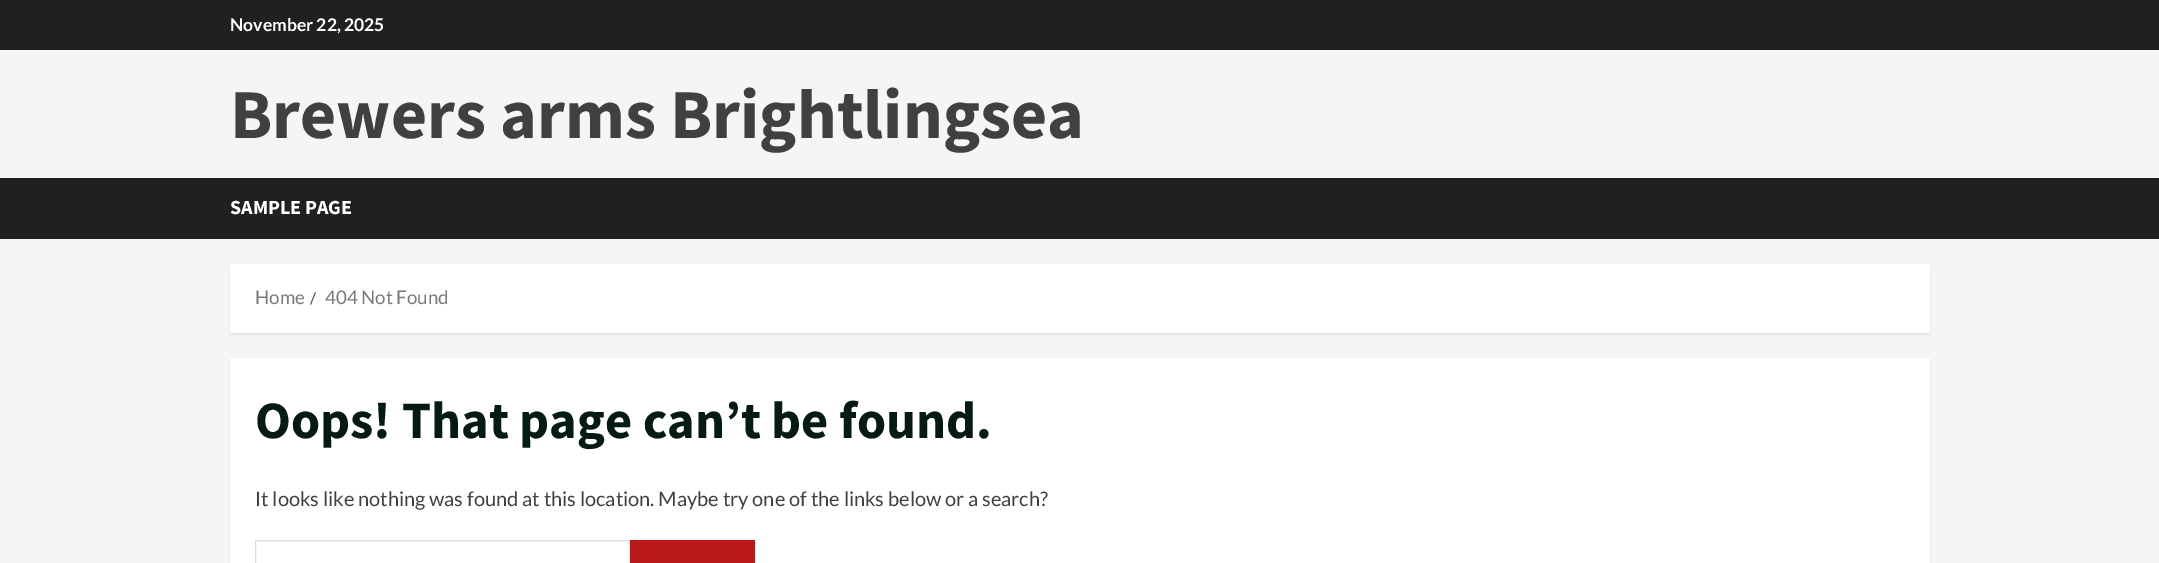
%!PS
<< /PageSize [2159 563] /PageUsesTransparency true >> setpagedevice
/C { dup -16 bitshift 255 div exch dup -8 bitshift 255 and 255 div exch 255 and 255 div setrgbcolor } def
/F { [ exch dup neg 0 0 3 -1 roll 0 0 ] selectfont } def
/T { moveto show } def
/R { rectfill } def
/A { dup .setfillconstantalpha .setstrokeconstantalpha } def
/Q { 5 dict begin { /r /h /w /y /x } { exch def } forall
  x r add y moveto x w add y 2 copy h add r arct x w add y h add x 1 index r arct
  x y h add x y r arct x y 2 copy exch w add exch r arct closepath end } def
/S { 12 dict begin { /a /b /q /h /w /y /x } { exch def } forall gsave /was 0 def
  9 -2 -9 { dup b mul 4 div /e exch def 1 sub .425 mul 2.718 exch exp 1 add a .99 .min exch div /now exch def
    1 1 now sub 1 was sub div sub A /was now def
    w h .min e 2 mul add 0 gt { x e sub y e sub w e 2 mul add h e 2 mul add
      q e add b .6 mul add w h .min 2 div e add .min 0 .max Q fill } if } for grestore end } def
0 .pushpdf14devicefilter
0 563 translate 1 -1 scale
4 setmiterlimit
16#F5F5F5 C
0 0 2159 563 R
16#202020 C
0 0 2159 50 R
/Lato-Bold 17.5 F
16#FFFFFF C
(November 22, 2025) 230 31 T
/SourceSansPro-Bold 70 F
16#404040 C
(Brewers arms Brightlingsea) 230 138 T
16#202020 C
0 178 2159 61 R
/SourceSansPro-Bold 20 F
16#FFFFFF C
(SAMPLE PAGE) 230 214 T
16#000000 C
230 266 1700 69 0 1 .08 S
16#FFFFFF C
230 264 1700 69 R
/Lato-Regular 18.75 F
16#797979 C
(Home) 255 304 T
/Lato-Regular 16 F
16#404040 C
(/) 310 304 T
/Lato-Regular 18.75 F
16#797979 C
(404 Not Found) 325 304 T
16#000000 C
230 360 1700 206 0 1 .08 S
16#FFFFFF C
230 358 1700 205 R
/SourceSansPro-Bold 52.5 F
16#031B11 C
(Oops! That page can’t be found.) 255 438 T
/Lato-Regular 20 F
16#404040 C
(It looks like nothing was found at this location. Maybe try one of the links below or a search?) 255 506 T
16#DCDCDC C
255.5 540.5 374 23 rectstroke
16#BB1919 C
630 540 125 23 R
.poppdf14devicefilter showpage
